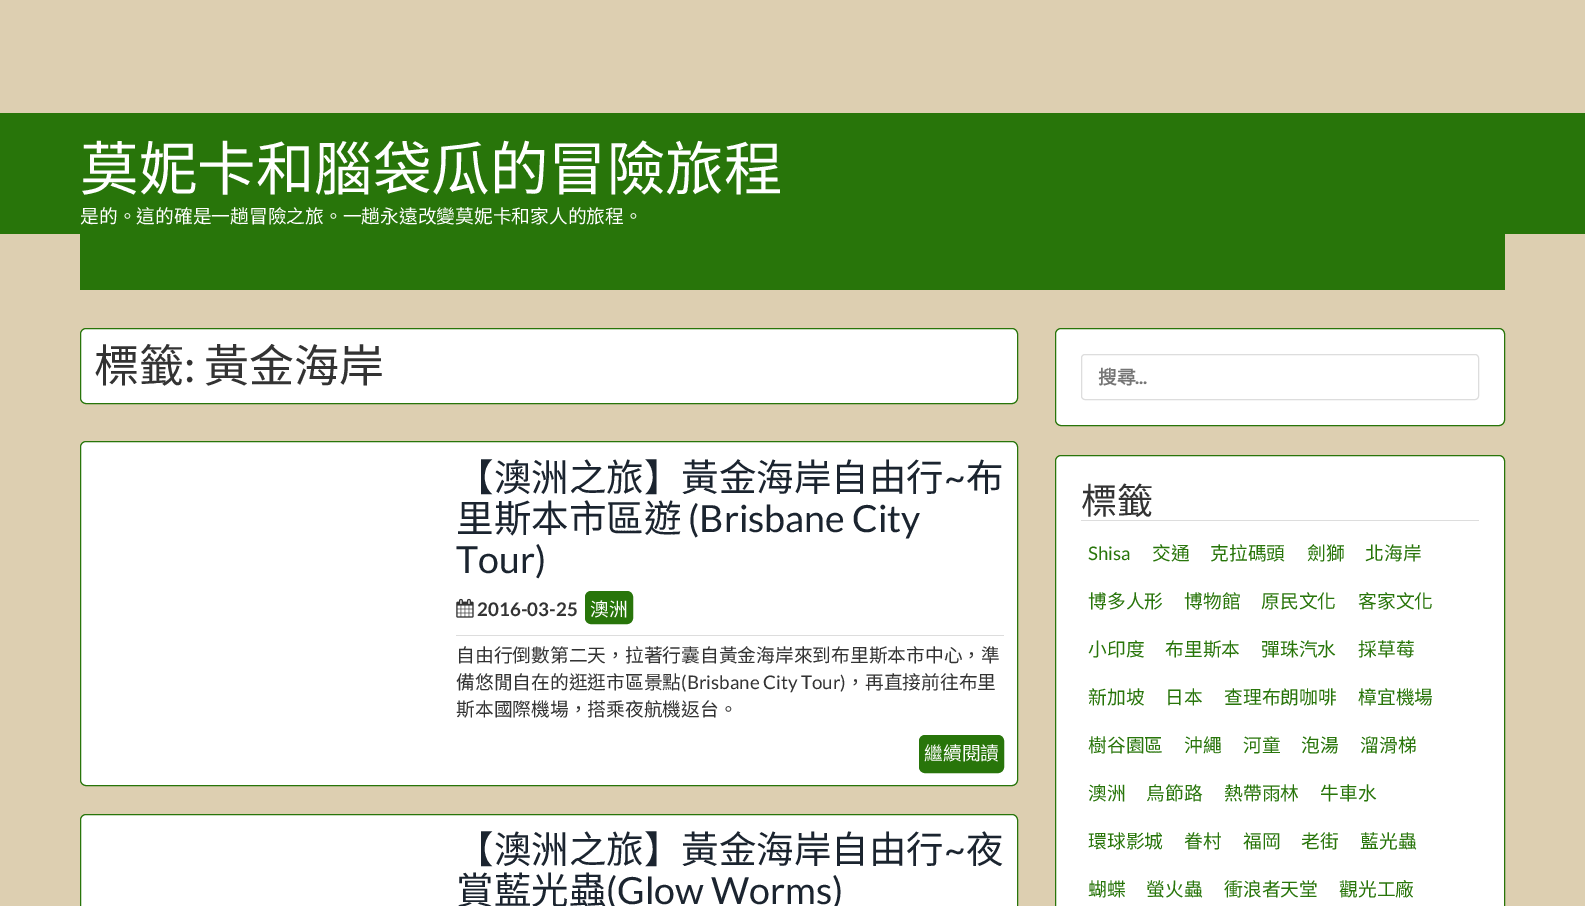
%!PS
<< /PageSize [1585 906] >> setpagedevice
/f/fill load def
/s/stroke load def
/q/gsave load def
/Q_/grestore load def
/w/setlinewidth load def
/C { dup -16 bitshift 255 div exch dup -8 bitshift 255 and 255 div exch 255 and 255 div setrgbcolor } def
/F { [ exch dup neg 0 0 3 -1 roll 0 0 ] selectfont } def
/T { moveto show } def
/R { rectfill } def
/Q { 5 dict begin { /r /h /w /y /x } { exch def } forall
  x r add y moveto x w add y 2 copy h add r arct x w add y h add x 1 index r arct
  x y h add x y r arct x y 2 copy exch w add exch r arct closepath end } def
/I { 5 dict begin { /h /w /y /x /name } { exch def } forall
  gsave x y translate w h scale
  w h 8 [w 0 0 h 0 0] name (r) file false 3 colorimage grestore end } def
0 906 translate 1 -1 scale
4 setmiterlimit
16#DDCFB1 C
0 0 1585 906 R
16#28750A C
0 113 1585 121 R
/NotoSansCJKTC-Regular 58.5 F
16#FFFFFF C
(莫妮卡和腦袋瓜的冒險旅程) 80 190 T
/NotoSansCJKTC-Regular 18.75 F
(是的。這的確是一趟冒險之旅。一趟永遠改變莫妮卡和家人的旅程。) 80 223 T
16#28750A C
80 234 1425 56 R
16#FFFFFF C
80.5 328.5 937 75 5.5 Q q f Q_
16#28750A C
s
/NotoSansCJKTC-Regular 45 F
16#333333 C
(標籤) 94 382 T
/Lato-Regular 45 F
(:) 184 382 T
/NotoSansCJKTC-Regular 45 F
(黃金海岸) 204 382 T
16#FFFFFF C
80.5 441.5 937 344 5.5 Q q f Q_
16#28750A C
s
16#DDDDDD C
456 635 548 1 R
/NotoSansCJKTC-Regular 37.5 F
16#1B242F C
(【澳洲之旅】黃金海岸自由行) 456 491 T
/Lato-Regular 37.5 F
(~) 944 491 T
/NotoSansCJKTC-Regular 37.5 F
(布) 966 491 T
(里斯本市區遊) 456 532 T
/Lato-Regular 37.5 F
(\(Brisbane City) 688 532 T
(Tour\)) 456 573 T
(1.rgb) 456 598 18 20 I
/Lato-Bold 18.75 F
16#333333 C
(2016-03-25) 477 616 T
16#28750A C
586.5 592.5 45 30 4.5 Q q f Q_
3 w
s
/NotoSansCJKTC-Regular 18.75 F
16#FFFFFF C
(澳洲) 590 616 T
16#333333 C
(自由行倒數第二天，拉著行囊自黃金海岸來到布里斯本市中心，準) 456 662 T
(備悠閒自在的逛逛市區景點) 456 689 T
/Lato-Regular 18.75 F
(\(Brisbane City Tour\)) 681 689 T
/NotoSansCJKTC-Regular 18.75 F
(，再直接前往布里) 846 689 T
(斯本國際機場，搭乘夜航機返台。) 456 716 T
16#28750A C
920.5 736.5 82 35 4.5 Q q f Q_
s
16#FFFFFF C
(繼續閱讀) 924 760 T
80.5 814.5 937 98 5.5 Q q f Q_
16#28750A C
1 w
s
/NotoSansCJKTC-Regular 37.5 F
16#1B242F C
(【澳洲之旅】黃金海岸自由行) 456 863 T
/Lato-Regular 37.5 F
(~) 944 863 T
/NotoSansCJKTC-Regular 37.5 F
(夜) 966 863 T
(賞藍光蟲) 456 904 T
/Lato-Regular 37.5 F
(\(Glow Worms\)) 606 904 T
16#FFFFFF C
1055.5 328.5 449 97 5.5 Q q f Q_
16#28750A C
s
16#DDDDDD C
1081.5 354.5 397 45 3.5 Q s
/NotoSansCJKTC-Bold 18.75 F
16#757575 C
(搜尋) 1098 384 T
/Lato-Bold 18.75 F
(...) 1135 384 T
16#FFFFFF C
1055.5 455.5 449 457 5.5 Q q f Q_
16#28750A C
s
16#DDDDDD C
1081 520 398 1 R
/NotoSansCJKTC-Regular 36 F
16#333333 C
(標籤) 1081 514 T
/Lato-Regular 18.75 F
16#28750A C
(Shisa) 1088 560 T
/NotoSansCJKTC-Regular 18.75 F
(交通) 1152 560 T
(克拉碼頭) 1210 560 T
(劍獅) 1307 560 T
(北海岸) 1365 560 T
(博多人形) 1088 608 T
(博物館) 1184 608 T
(原民文化) 1261 608 T
(客家文化) 1358 608 T
(小印度) 1088 656 T
(布里斯本) 1165 656 T
(彈珠汽水) 1261 656 T
(採草莓) 1358 656 T
(新加坡) 1088 704 T
(日本) 1165 704 T
(查理布朗咖啡) 1224 704 T
(樟宜機場) 1358 704 T
(樹谷園區) 1088 752 T
(沖繩) 1184 752 T
(河童) 1243 752 T
(泡湯) 1301 752 T
(溜滑梯) 1360 752 T
(澳洲) 1088 800 T
(烏節路) 1146 800 T
(熱帶雨林) 1224 800 T
(牛車水) 1320 800 T
(環球影城) 1088 848 T
(眷村) 1184 848 T
(福岡) 1243 848 T
(老街) 1301 848 T
(藍光蟲) 1360 848 T
(蝴蝶) 1088 896 T
(螢火蟲) 1146 896 T
(衝浪者天堂) 1224 896 T
(觀光工廠) 1339 896 T
showpage
